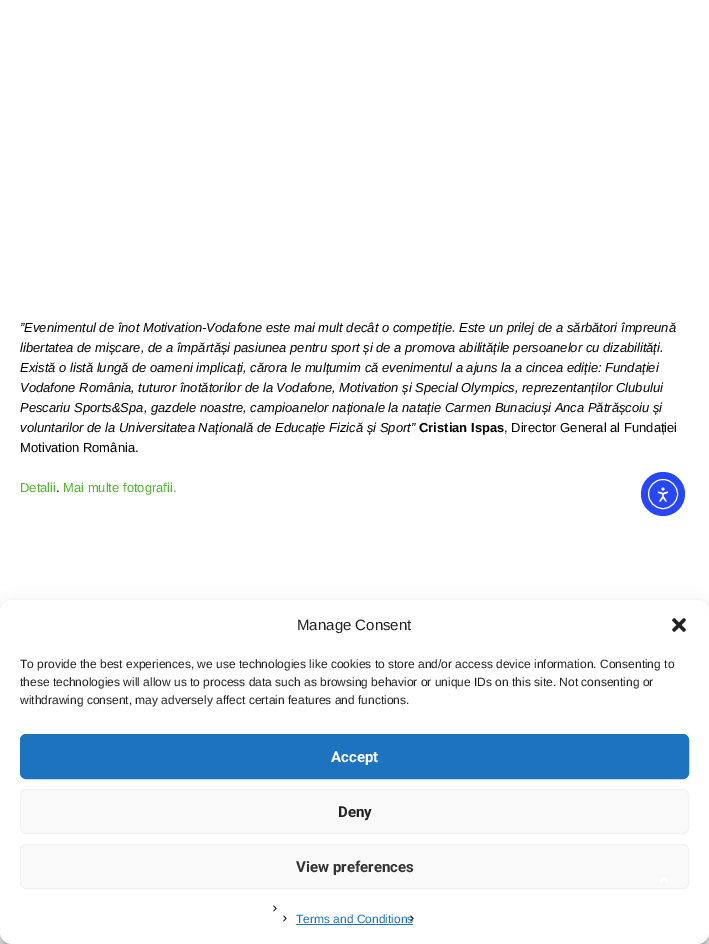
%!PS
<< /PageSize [709 944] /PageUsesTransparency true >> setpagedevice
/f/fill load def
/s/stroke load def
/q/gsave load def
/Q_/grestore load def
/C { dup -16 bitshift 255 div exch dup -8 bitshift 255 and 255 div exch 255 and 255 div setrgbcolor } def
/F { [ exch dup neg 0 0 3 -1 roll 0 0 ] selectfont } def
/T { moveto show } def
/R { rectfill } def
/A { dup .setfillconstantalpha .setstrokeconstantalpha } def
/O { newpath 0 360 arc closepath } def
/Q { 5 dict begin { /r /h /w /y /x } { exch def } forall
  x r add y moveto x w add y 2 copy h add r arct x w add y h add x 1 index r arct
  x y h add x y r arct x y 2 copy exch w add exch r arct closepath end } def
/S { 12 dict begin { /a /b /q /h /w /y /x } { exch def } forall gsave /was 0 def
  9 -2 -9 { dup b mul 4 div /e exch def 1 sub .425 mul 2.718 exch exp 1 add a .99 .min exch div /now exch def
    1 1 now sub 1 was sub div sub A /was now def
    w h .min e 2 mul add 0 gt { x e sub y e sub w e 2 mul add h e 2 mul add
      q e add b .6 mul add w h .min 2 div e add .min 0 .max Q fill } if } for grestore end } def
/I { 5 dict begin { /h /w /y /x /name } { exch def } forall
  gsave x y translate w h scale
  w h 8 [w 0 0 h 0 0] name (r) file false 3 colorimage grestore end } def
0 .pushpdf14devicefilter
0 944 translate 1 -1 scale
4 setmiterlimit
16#FFFFFF C
0 0 709 944 R
/LiberationSans-Italic 13 F
16#000000 C
(”Evenimentul de înot Motivation-Vodafone este mai mult decât o competiție. Este un prilej de a sărbători împreună) 20 332 T
(libertatea de mișcare, de a împărtăși pasiunea pentru sport și de a promova abilitățile persoanelor cu dizabilități.) 20 352 T
(Există o listă lungă de oameni implicați, cărora le mulțumim că evenimentul a ajuns la a cincea ediție: Fundației) 20 372 T
(Vodafone România, tuturor înotătorilor de la Vodafone, Motivation și Special Olympics, reprezentanților Clubului) 20 392 T
(Pescariu Sports&Spa, gazdele noastre, campioanelor naționale la natație Carmen Bunaciuși Anca Pătrășcoiu și) 20 412 T
(voluntarilor de la Universitatea Națională de Educație Fizică și Sport”) 20 432 T
/LiberationSans-Bold 13 F
(Cristian Ispas) 419 432 T
/LiberationSans-Regular 13 F
(, Director General al Fundației) 504 432 T
(Motivation România.) 20 452 T
16#54B331 C
(Detalii) 20 492 T
16#000000 C
(.) 56 492 T
16#54B331 C
(Mai multe fotografii.) 63 492 T
16#000000 C
0 606 709 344 12 3 .23 S
0 610 709 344 12 10 .19 S
16#FFFFFF C
0 600 709 344 12 Q f
16#F9F9F9 C
20.5 844.5 668 44 5.5 Q q f Q_
16#F2F2F2 C
s
(1.rgb) 660 878 8 4 I
16#2847F3 C
663 494 22 O f
16#FFFFFF C
663 494 14.5 O s
(2.rgb) 657 487 12 15 I
/LiberationSans-Regular 15 F
16#222222 C
(Manage Consent) 297 630 T
(3.rgb) 672 618 14 14 I
/LiberationSans-Regular 12 F
(To provide the best experiences, we use technologies like cookies to store and/or access device information. Consenting to) 20 668 T
(these technologies will allow us to process data such as browsing behavior or unique IDs on this site. Not consenting or) 20 686 T
(withdrawing consent, may adversely affect certain features and functions.) 20 704 T
16#1E73BE C
20.5 734.5 668 44 5.5 Q q f Q_
s
/Roboto-Bold 15 F
16#FFFFFF C
(Accept) 331 762 T
16#F9F9F9 C
20.5 789.5 668 44 5.5 Q q f Q_
16#F2F2F2 C
s
16#222222 C
(Deny) 338 817 T
16#333333 C
(View preferences) 296 872 T
(4.rgb) 273 905 4 7 I
(4.rgb) 283 915 4 7 I
/LiberationSans-Regular 12 F
16#1E73BE C
(Terms and Conditions) 296 923 T
296 924 117 1 R
(5.rgb) 410 915 4 7 I
.poppdf14devicefilter showpage
